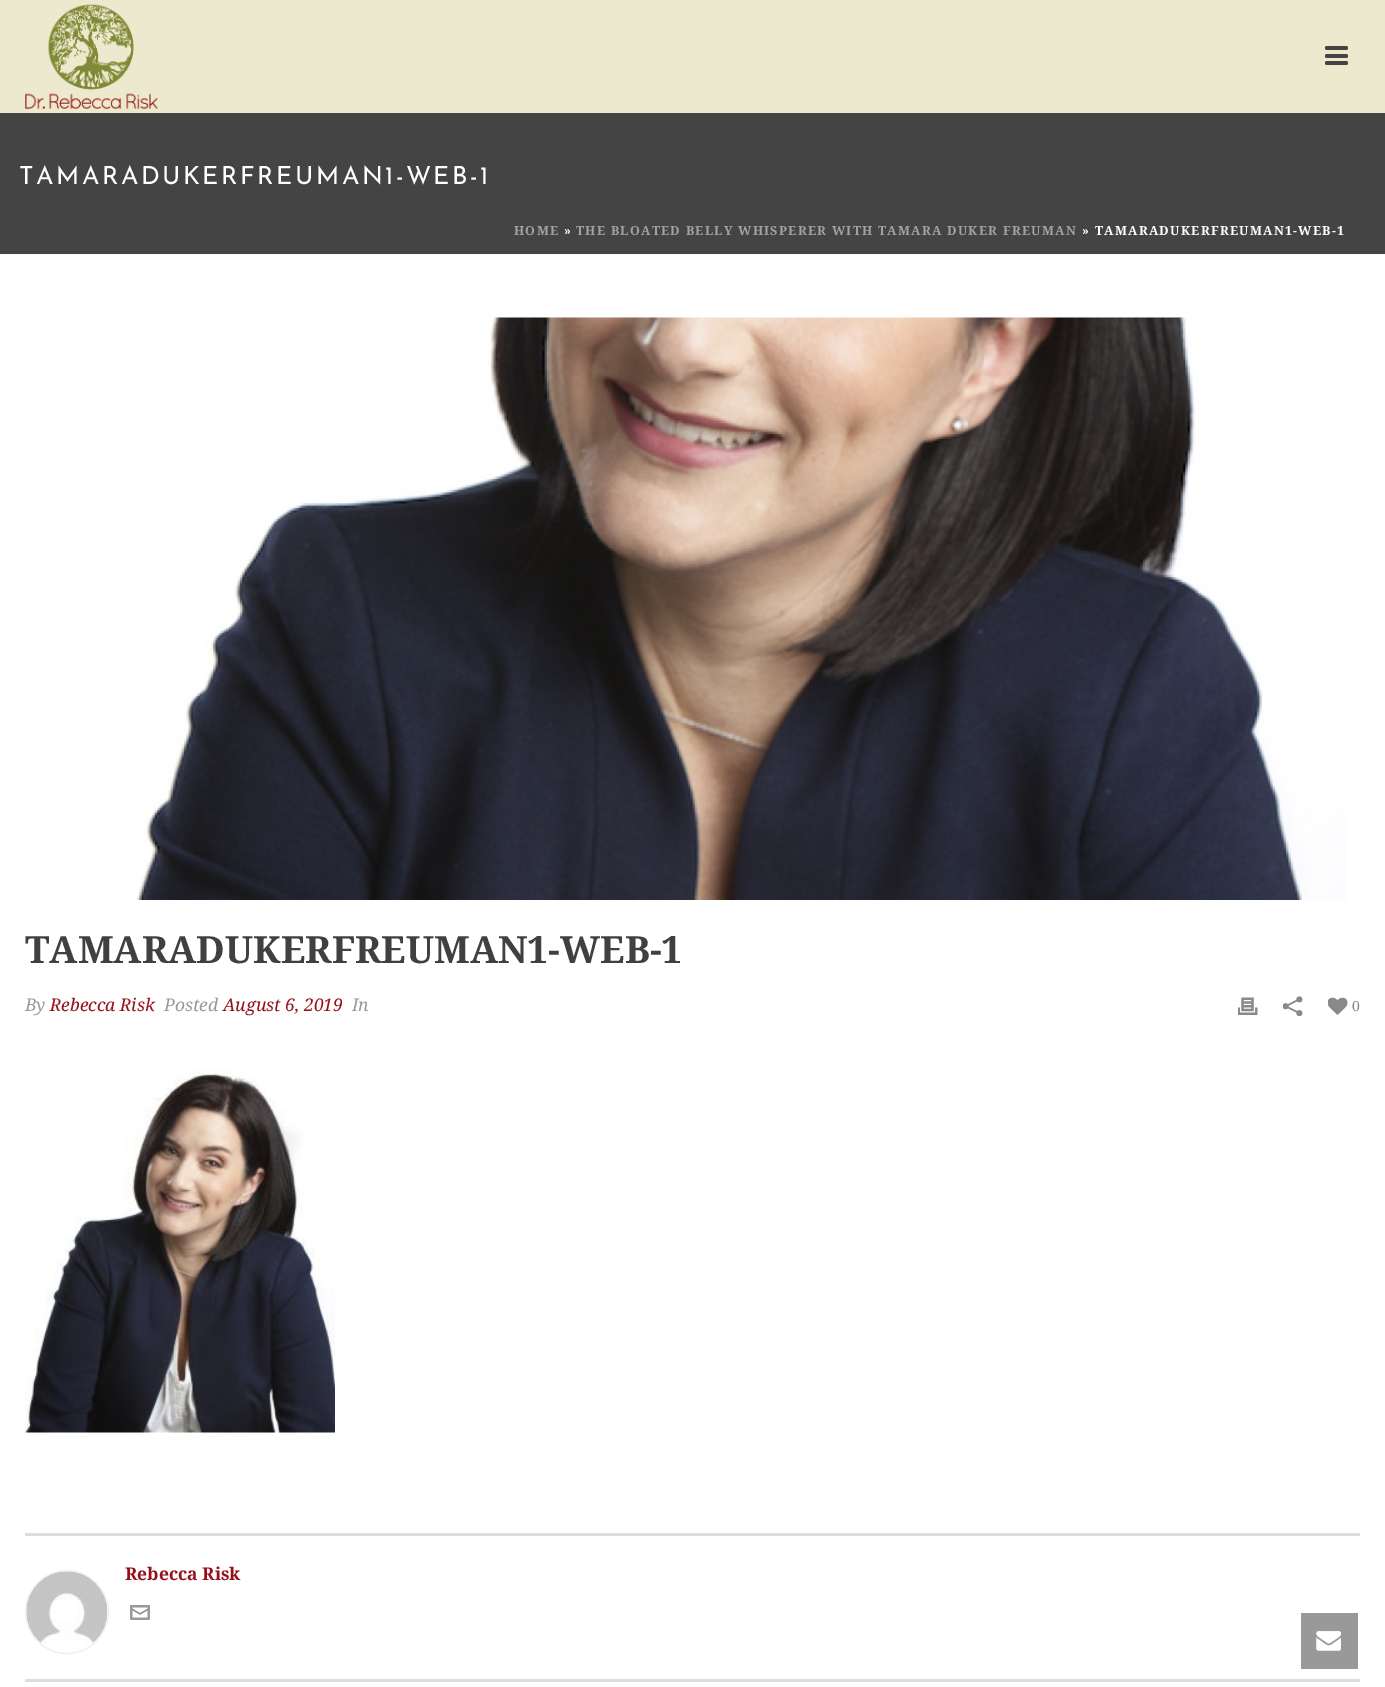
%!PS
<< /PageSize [1385 1687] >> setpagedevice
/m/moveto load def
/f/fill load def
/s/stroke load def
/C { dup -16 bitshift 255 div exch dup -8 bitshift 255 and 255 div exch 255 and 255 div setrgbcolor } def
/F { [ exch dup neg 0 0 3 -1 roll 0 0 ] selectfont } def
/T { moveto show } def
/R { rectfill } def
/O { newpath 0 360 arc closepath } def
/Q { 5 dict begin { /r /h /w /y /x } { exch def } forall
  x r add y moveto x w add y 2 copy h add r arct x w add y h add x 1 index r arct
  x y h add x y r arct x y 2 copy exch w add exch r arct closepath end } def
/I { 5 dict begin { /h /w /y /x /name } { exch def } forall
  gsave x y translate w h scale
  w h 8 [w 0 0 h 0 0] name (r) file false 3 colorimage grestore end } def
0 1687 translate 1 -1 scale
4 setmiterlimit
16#FFFFFF C
0 0 1385 1687 R
16#444444 C
0 113 1385 141 R
16#FAFAFA C
0 254 1385 1 R
16#EDE9CE C
0 0 1385 113 R
(1.rgb) 25 4 133 105 I
16#444444 C
1325 46 23 4 2 Q f
1325 54 23 4 2 Q f
1325 61 23 4 2 Q f
/JosefinSans-Regular 25 F
16#FFFFFF C
19 184 m 2.5 0 (TAMARADUKERFREUMAN1-WEB-1) ashow
/DroidSerif-Bold 12.5 F
16#A2A2A2 C
514 235 m 1.25 0 (HOME) ashow
16#FFFFFF C
564 235 m 1.25 0 (») ashow
16#A2A2A2 C
576 235 m 1.25 0 (THE BLOATED BELLY WHISPERER WITH TAMARA DUKER FREUMAN) ashow
16#FFFFFF C
1082 235 m 1.25 0 (» TAMARADUKERFREUMAN1-WEB-1) ashow
(2.rgb) 136 317 1210 583 I
/DroidSerif-Bold 37.5 F
16#404040 C
(TAMARADUKERFREUMAN1-WEB-1) 25 963 T
/DroidSerif-Italic 17.5 F
16#999999 C
(By) 25 1011 T
16#96101A C
(Rebecca Risk) 50 1011 T
16#999999 C
(Posted) 164 1011 T
16#96101A C
(August 6, 2019) 223 1011 T
16#999999 C
(In) 352 1011 T
(3.rgb) 1238 997 20 18 I
(4.rgb) 1283 996 20 20 I
(5.rgb) 1328 997 20 18 I
/DroidSerif-Regular 14 F
16#898989 C
(0) 1352 1011 T
(6.rgb) 25 1069 310 364 I
16#DDDDDD C
25 1533 1335 3 R
25 1679 1335 3 R
16#EEEEEE C
67 1612 41.5 O s
(7.rgb) 26 1571 82 72 I
/DroidSerif-Bold 17.5 F
16#96101A C
(Rebecca Risk) 125 1580 T
(8.rgb) 130 1605 20 15 I
16#999999 C
1301 1613 57 56 R
(9.rgb) 1316 1631 25 20 I
showpage
